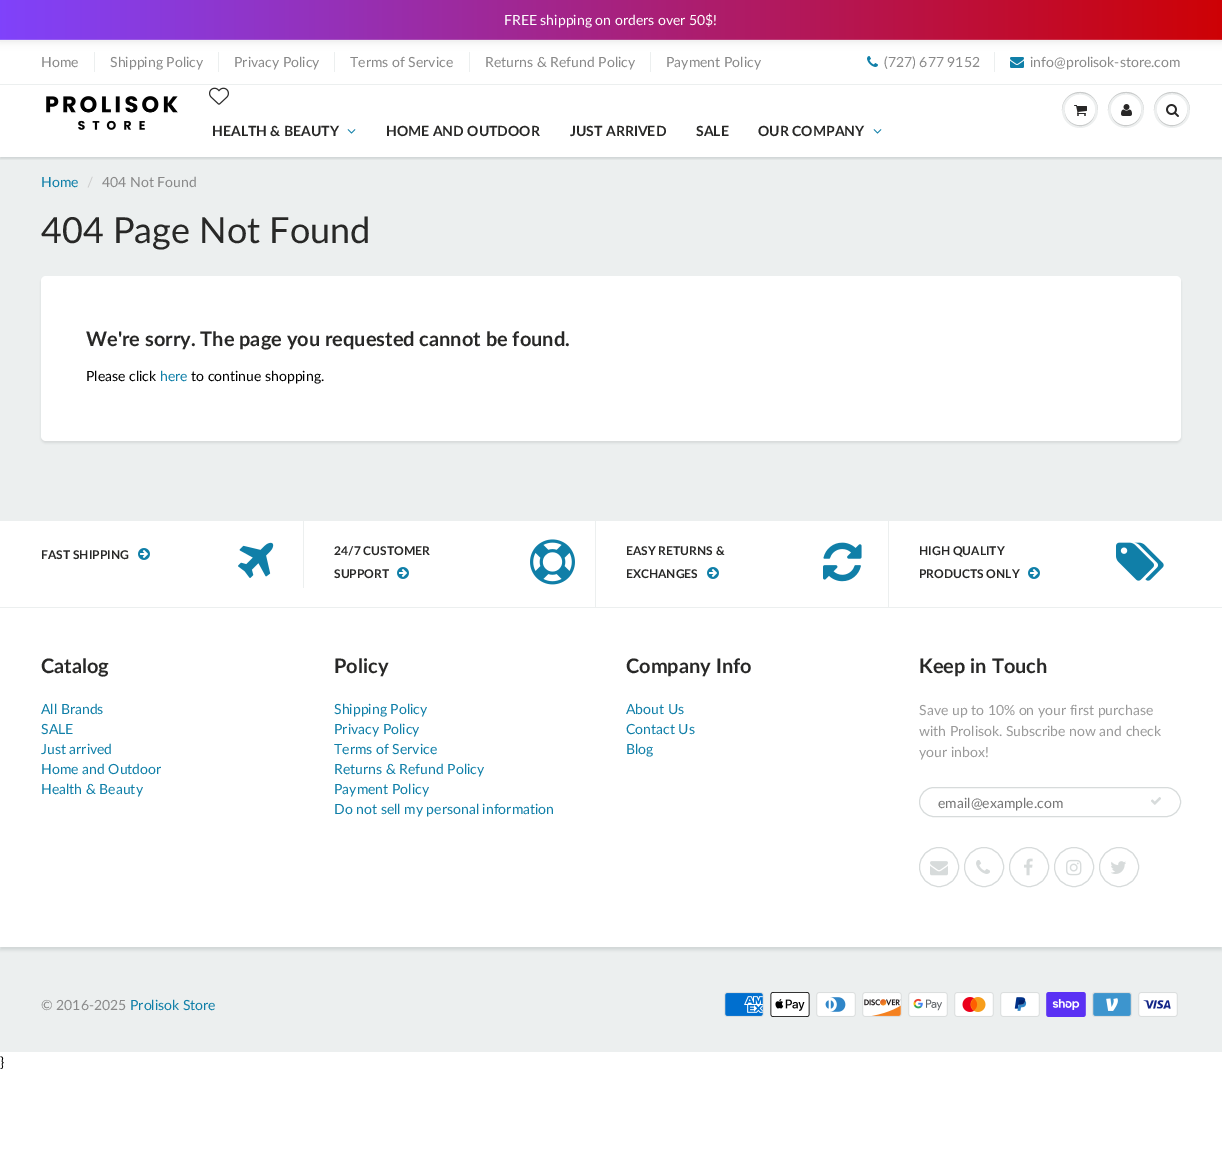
%!PS
<< /PageSize [1222 1159] /PageUsesTransparency true >> setpagedevice
/m/moveto load def
/c/rcurveto load def
/z/closepath load def
/f/fill load def
/s/stroke load def
/q/gsave load def
/Q_/grestore load def
/C { dup -16 bitshift 255 div exch dup -8 bitshift 255 and 255 div exch 255 and 255 div setrgbcolor } def
/F { [ exch dup neg 0 0 3 -1 roll 0 0 ] selectfont } def
/T { moveto show } def
/R { rectfill } def
/A { dup .setfillconstantalpha .setstrokeconstantalpha } def
/O { newpath 0 360 arc closepath } def
/Q { 5 dict begin { /r /h /w /y /x } { exch def } forall
  x r add y moveto x w add y 2 copy h add r arct x w add y h add x 1 index r arct
  x y h add x y r arct x y 2 copy exch w add exch r arct closepath end } def
/S { 12 dict begin { /a /b /q /h /w /y /x } { exch def } forall gsave /was 0 def
  9 -2 -9 { dup b mul 4 div /e exch def 1 sub .425 mul 2.718 exch exp 1 add a .99 .min exch div /now exch def
    1 1 now sub 1 was sub div sub A /was now def
    w h .min e 2 mul add 0 gt { x e sub y e sub w e 2 mul add h e 2 mul add
      q e add b .6 mul add w h .min 2 div e add .min 0 .max Q fill } if } for grestore end } def
/I { 5 dict begin { /h /w /y /x /name } { exch def } forall
  gsave x y translate w h scale
  w h 8 [w 0 0 h 0 0] name (r) file false 3 colorimage grestore end } def
0 .pushpdf14devicefilter
0 1159 translate 1 -1 scale
4 setmiterlimit
16#FFFFFF C
0 0 1222 1159 R
16#ECEFEF C
94 52 1 20 R
218 52 1 20 R
334 52 1 20 R
469 52 1 20 R
650 52 1 20 R
994 52 1 20 R
16#000000 C
-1 -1 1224 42 0 4.5 .11 S
(1.rgb) 0 0 1222 40 I
/Lato-Regular 14 F
16#FFFFFF C
(FREE shipping on orders over 50$!) 504 25 T
16#898989 C
(Home) 41 67 T
(Shipping Policy) 110 67 T
(Privacy Policy) 234 67 T
(Terms of Service) 350 67 T
(Returns & Refund Policy) 485 67 T
(Payment Policy) 666 67 T
(2.rgb) 867 56 11 11 I
(\(727\) 677 9152) 884 67 T
(3.rgb) 1010 57 14 11 I
(info@prolisok-store.com) 1030 67 T
16#ECEFEF C
0 157 1222 364 R
q
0 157 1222 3 rectclip
16#0B191C C
0 86 1222 73 0 1 .12 S
Q_
0 84 1222 1 R
(4.rgb) 46 96 132 34 I
(5.rgb) 209 87 20 18 I
/Lato-Bold 14 F
16#282827 C
(HEALTH & BEAUTY) 212 136 T
(6.rgb) 347 129 9 5 I
(HOME AND OUTDOOR) 386 136 T
(JUST ARRIVED) 570 136 T
(SALE) 696 136 T
(OUR COMPANY) 758 136 T
(6.rgb) 873 129 9 5 I
16#EDEFEF C
1080 110 18 O f
16#C9CBCB C
1080 93 m 12 0 18 8.5 18 17.5 c 0 -3.5 -1 -7.5 -3 -10.5 c -10 -15 -33.5 -7.5 -33 10.5 c 0 -9 6 -17.5 18 -17.5 c z f
1095 110.5 m -.5 19 -29.5 19 -30 0 c -.5 15 19 21.5 27.5 9 c 1.5 -2.5 2.5 -6 2.5 -9 c z f
16#FFFFFF C
1080 110 15 O f
1080 96 m 10 0 15 7 15 14.5 c 0 -3 -1 -6.5 -2.5 -9 c -8.5 -12.5 -28 -6 -27.5 9 c 0 -7.5 5 -14.5 15 -14.5 c z f
(7.rgb) 1074 105 13 11 I
16#EDEFEF C
1126 110 18 O f
16#C9CBCB C
1126 93 m 12 0 18 8.5 18 17.5 c 0 -3.5 -1 -7.5 -3 -10.5 c -10 -15 -33.5 -7.5 -33 10.5 c 0 -9 6 -17.5 18 -17.5 c z f
1141 110.5 m -.5 19 -29.5 19 -30 0 c 0 3 1 6.5 2.5 9 c 8.5 12.5 28 6 27.5 -9 c z f
16#FFFFFF C
1126 110 15 O f
1126 96 m 10 0 15 7 15 14.5 c 0 -3 -1 -6.5 -2.5 -9 c -8.5 -12.5 -28 -6 -27.5 9 c 0 -7.5 5 -14.5 15 -14.5 c z f
(8.rgb) 1121 104 11 12 I
16#EDEFEF C
1172 110 18 O f
16#C9CBCB C
1172 93 m 12 0 18 8.5 18 17.5 c 0 -3.5 -1 -7.5 -3 -10.5 c -10 -15 -33.5 -7.5 -33 10.5 c 0 -9 6 -17.5 18 -17.5 c z f
1187 110.5 m -.5 19 -29.5 19 -30 0 c 0 3 1 6.5 2.5 9 c 8.5 12.5 28 6 27.5 -9 c z f
16#FFFFFF C
1172 110 15 O f
1172 96 m 10 0 15 7 15 14.5 c 0 -3 -1 -6.5 -2.5 -9 c -8.5 -12.5 -28 -6 -27.5 9 c 0 -7.5 5 -14.5 15 -14.5 c z f
(9.rgb) 1166 104 13 13 I
/Lato-Regular 14 F
16#107FA8 C
(Home) 41 187 T
16#CCCCCC C
(/) 87 187 T
16#898989 C
(404 Not Found) 102 187 T
/Lato-Regular 36 F
16#282827 C
(404 Page Not Found) 41 243 T
16#0B191C C
41 278 1140 165 5 1 .1 S
16#FFFFFF C
41 276 1140 165 5 Q f
/Lato-Bold 20 F
16#282827 C
(We're sorry. The page you requested cannot be found.) 86 346 T
/Lato-Regular 14 F
16#000000 C
(Please click) 86 381 T
16#107FA8 C
(here) 160 381 T
16#000000 C
(to continue shopping.) 191 381 T
16#ECEFEF C
303 521 1 67 R
/Lato-Bold 12 F
16#282827 C
(FAST SHIPPING) 41 559 T
(10.rgb) 138 548 12 12 I
(11.rgb) 238 542 36 36 I
16#ECEFEF C
595 521 1 86 R
16#282827 C
(24/7 CUSTOMER) 334 555 T
(SUPPORT) 334 578 T
(10.rgb) 397 567 12 12 I
(12.rgb) 530 539 45 46 I
16#ECEFEF C
888 521 1 86 R
16#282827 C
(EASY RETURNS &) 626 555 T
(EXCHANGES) 626 578 T
(10.rgb) 707 567 12 12 I
(13.rgb) 823 542 39 40 I
(HIGH QUALITY) 919 555 T
(PRODUCTS ONLY) 919 578 T
(10.rgb) 1028 567 12 12 I
(14.rgb) 1116 542 48 39 I
16#ECEFEF C
0 947 1222 105 R
q
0 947 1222 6 rectclip
16#D1D7D7 C
0 610 1222 340 0 1.5 1 S
Q_
0 607 1222 1 R
/Lato-Bold 20 F
16#282827 C
(Catalog) 41 673 T
/Lato-Regular 14 F
16#107FA8 C
(All Brands) 41 714 T
(SALE) 41 734 T
(Just arrived) 41 754 T
(Home and Outdoor) 41 774 T
(Health & Beauty) 41 794 T
/Lato-Bold 20 F
16#282827 C
(Policy) 334 673 T
/Lato-Regular 14 F
16#107FA8 C
(Shipping Policy) 334 714 T
(Privacy Policy) 334 734 T
(Terms of Service) 334 754 T
(Returns & Refund Policy) 334 774 T
(Payment Policy) 334 794 T
(Do not sell my personal information) 334 814 T
/Lato-Bold 20 F
16#282827 C
(Company Info) 626 673 T
/Lato-Regular 14 F
16#107FA8 C
(About Us) 626 714 T
(Contact Us) 626 734 T
(Blog) 626 754 T
/Lato-Bold 20 F
16#282827 C
(Keep in Touch) 919 673 T
/Lato-Regular 14 F
16#9A9A9A C
(Save up to 10% on your first purchase) 919 715 T
(with Prolisok. Subscribe now and check) 919 736 T
(your inbox!) 919 757 T
16#D7DBDB C
919.5 787.5 261 29 14.5 Q s
16#757575 C
(email@example.com) 938 808 T
(15.rgb) 1151 797 10 8 I
16#D7DBDB C
939 867 19.5 O s
(16.rgb) 930 861 18 15 I
984 867 19.5 O s
(17.rgb) 976 860 14 14 I
1029 867 19.5 O s
(18.rgb) 1024 858 9 18 I
1074 867 19.5 O s
(19.rgb) 1066 859 16 17 I
1119 867 19.5 O s
(20.rgb) 1111 861 15 13 I
16#898989 C
(© 2016-2025) 41 1010 T
16#107FA8 C
(Prolisok Store) 130 1010 T
(21.rgb) 724 992 40 25 I
(22.rgb) 770 992 40 25 I
(23.rgb) 816 992 40 25 I
(24.rgb) 862 992 40 25 I
(25.rgb) 908 992 40 25 I
(26.rgb) 954 992 40 25 I
(27.rgb) 1000 992 40 25 I
(28.rgb) 1046 992 40 25 I
(29.rgb) 1092 992 40 25 I
(30.rgb) 1138 992 40 25 I
16#000000 C
(}) 0 1067 T
.poppdf14devicefilter showpage
